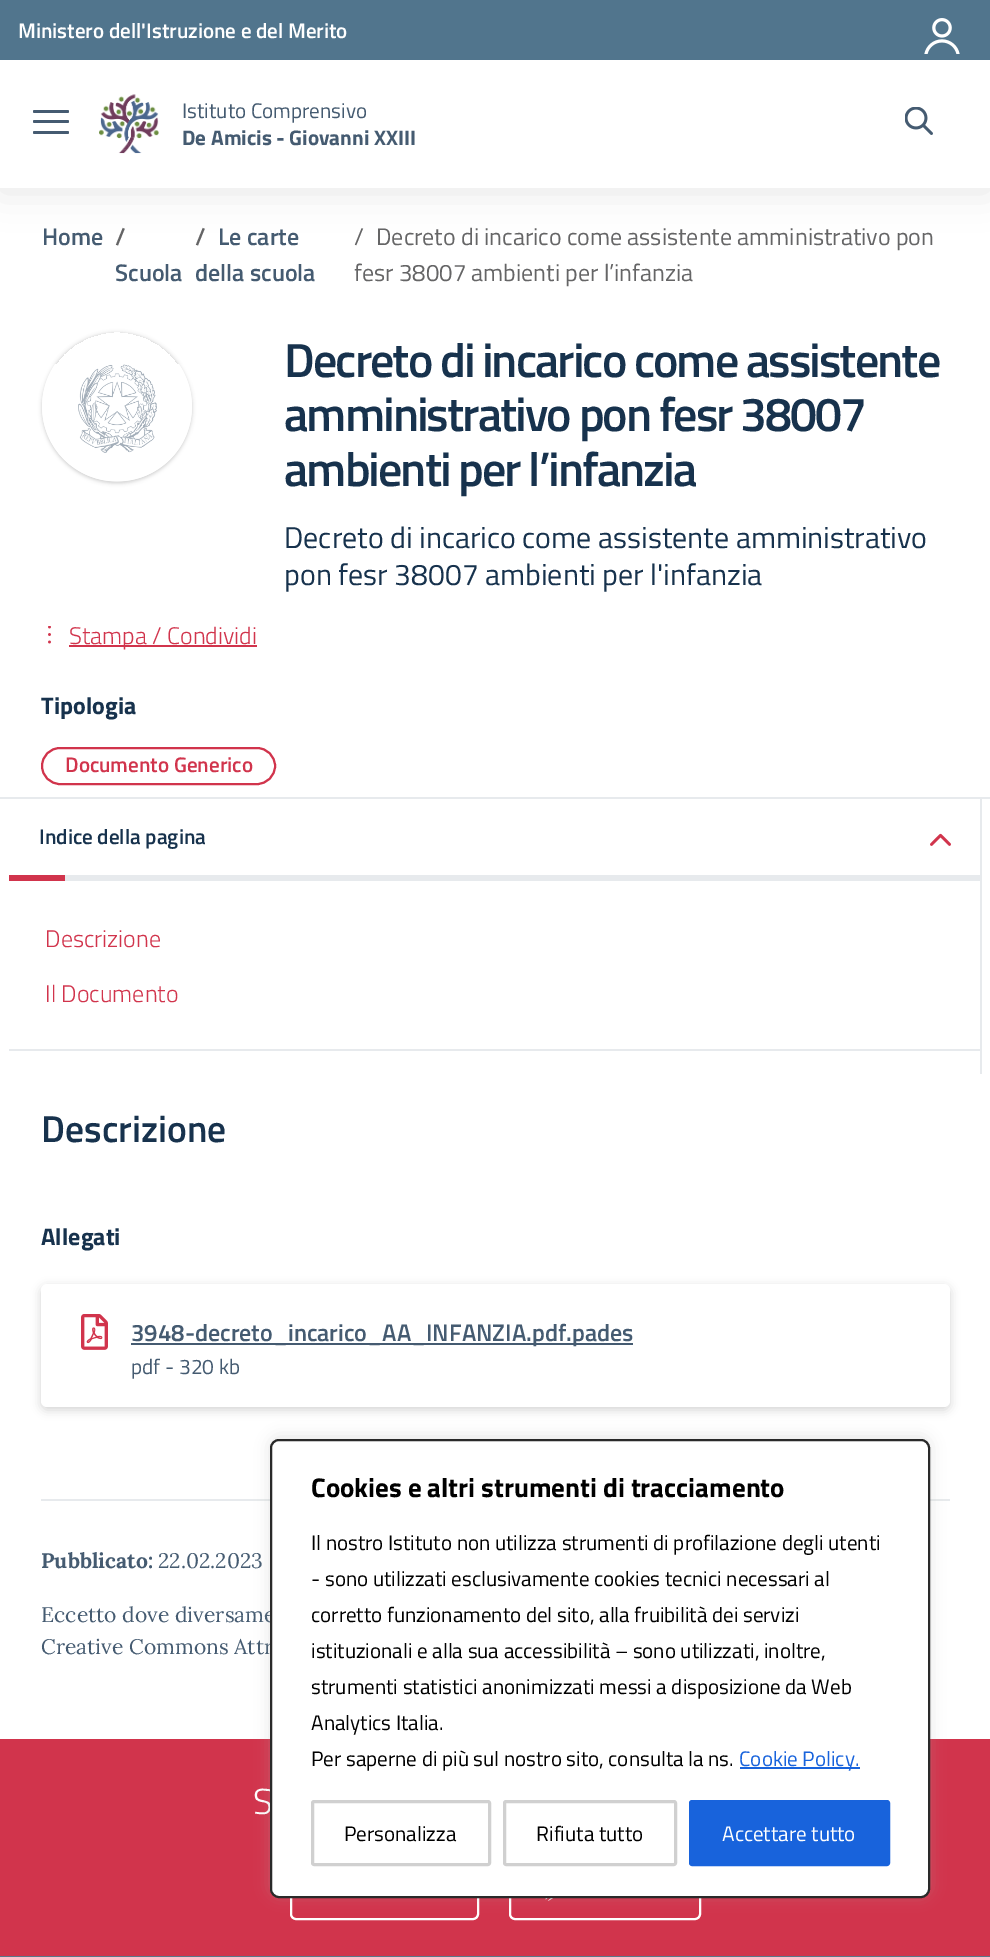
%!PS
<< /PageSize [990 1957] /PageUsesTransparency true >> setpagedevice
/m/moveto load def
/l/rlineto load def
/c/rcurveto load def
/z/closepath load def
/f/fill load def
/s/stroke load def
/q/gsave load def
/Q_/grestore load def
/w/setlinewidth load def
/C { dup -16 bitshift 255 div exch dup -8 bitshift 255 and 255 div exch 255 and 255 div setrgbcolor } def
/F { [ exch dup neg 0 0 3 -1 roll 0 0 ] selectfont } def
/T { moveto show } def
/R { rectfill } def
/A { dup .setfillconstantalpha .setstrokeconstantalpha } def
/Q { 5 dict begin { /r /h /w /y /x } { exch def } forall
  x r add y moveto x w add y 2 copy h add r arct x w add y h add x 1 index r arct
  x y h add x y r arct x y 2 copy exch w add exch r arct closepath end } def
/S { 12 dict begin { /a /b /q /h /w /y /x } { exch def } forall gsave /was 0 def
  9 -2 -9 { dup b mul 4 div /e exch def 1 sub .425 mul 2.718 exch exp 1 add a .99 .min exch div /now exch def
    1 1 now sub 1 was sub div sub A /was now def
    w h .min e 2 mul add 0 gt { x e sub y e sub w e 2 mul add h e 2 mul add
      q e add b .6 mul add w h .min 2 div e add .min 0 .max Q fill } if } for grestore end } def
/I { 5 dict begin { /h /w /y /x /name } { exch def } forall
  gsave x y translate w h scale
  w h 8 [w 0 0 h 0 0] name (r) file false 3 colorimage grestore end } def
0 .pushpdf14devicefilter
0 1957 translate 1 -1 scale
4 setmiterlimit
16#FFFFFF C
0 0 990 1957 R
16#000000 C
0 3 990 188 0 18.5 .1 S
16#FFFFFF C
0 60 990 128 R
16#51758D C
0 0 990 60 R
/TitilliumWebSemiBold-SemiBold 21 F
16#FFFFFF C
(Ministero dell'Istruzione e del Merito) 18 38 T
(1.rgb) 924 18 36 36 I
16#455B71 C
33 120 36 3 1.5 Q f
33 110 36 3 1.5 Q f
33 131 36 3 1.5 Q f
(2.rgb) 99 94 60 60 I
/TitilliumWeb-Regular 21.1 F
(Istituto Comprensivo) 182 118 T
/TitilliumWeb-Bold 21.1 F
(De Amicis - Giovanni XXIII) 182 145 T
(3.rgb) 905 107 28 28 I
/TitilliumWebSemiBold-SemiBold 24 F
(Home) 42 245 T
16#656566 C
(/) 115 245 T
16#455B71 C
(Scuola) 115 281 T
16#656566 C
(/) 195 245 T
16#455B71 C
(Le carte) 218 245 T
(della scuola) 195 281 T
/TitilliumWeb-Regular 24 F
16#656566 C
(/) 354 245 T
(Decreto di incarico come assistente amministrativo pon) 376 245 T
(fesr 38007 ambienti per l’infanzia) 354 281 T
q
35 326 m 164 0 l 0 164 l -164 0 l z 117 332 m 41.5 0 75 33.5 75 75 c 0 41.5 -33.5 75 -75 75 c -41.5 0 -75 -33.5 -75 -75 c 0 -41.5 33.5 -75 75 -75 c z eoclip newpath
16#000000 C
42 333 150 150 75 2 .2 S
Q_
(4.rgb) 42 364 150 118 I
/TitilliumWebSemiBold-SemiBold 48 F
16#17324D C
284 377 m -1.95 0 (Decreto di incarico come assistente) ashow
284 431 m -1.95 0 (amministrativo pon fesr 38007) ashow
284 486 m -1.95 0 (ambienti per l’infanzia) ashow
/TitilliumWeb-Regular 30 F
(Decreto di incarico come assistente amministrativo) 284 548 T
(pon fesr 38007 ambienti per l'infanzia) 284 585 T
(5.rgb) 48 626 3 18 I
16#D1344C C
69 645 188 2 R
/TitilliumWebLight-Light 24 F
(Stampa / Condividi) 69 644 T
/TitilliumWeb-Bold 24 F
16#17324D C
(Tipologia) 41 714 T
16#D1344C C
2 w
42 748 233 36 18 Q s
/TitilliumWebSemiBold-SemiBold 21.1 F
(Documento Generico) 65 772 T
16#E7EAED C
0 797 990 2 R
16#17324D C
(Indice della pagina) 39 844 T
(6.rgb) 930 833 21 13 I
16#D1344C C
9 875 56 6 R
16#E7EAED C
65 875 916 6 R
9 1049 972 2 R
/TitilliumWebLight-Light 24 F
16#D1344C C
(Descrizione) 45 947 T
(Il Documento) 45 1002 T
16#E7EAED C
980 798 2 276 R
/TitilliumWebSemiBold-SemiBold 37.5 F
16#17324D C
(Descrizione) 41 1142 T
/TitilliumWeb-Bold 24 F
(Allegati) 41 1245 T
16#000000 C
41 1287 909 123 6 5 .17 S
16#FFFFFF C
41 1284 909 123 6 Q f
(7.rgb) 81 1314 27 36 I
16#455B71 C
131 1343 502 2 R
/TitilliumWebSemiBold-SemiBold 24 F
(3948-decreto_incarico_AA_INFANZIA.pdf.pades) 131 1341 T
/TitilliumWeb-Regular 21.1 F
(pdf - 320 kb) 131 1374 T
16#E7EAED C
41 1499 909 2 R
/Lora-Bold 21.1 F
16#455B71 C
(Pubblicato:) 41 1568 T
/Lora-Regular 21.1 F
(22.02.2023) 158 1568 T
(Eccetto dove diversame) 41 1622 T
(Creative Commons Attr) 41 1654 T
16#D1344C C
0 1739 990 217 R
/TitilliumWebLight-Light 36 F
16#FFFFFF C
(S) 253 1814 T
291 1855 187 64 5 Q s
510 1855 190 64 5 Q s
(8.rgb) 545 1898 8 3 I
16#5A768A C
0 1956 990 1 R
16#ACABAB C
270 1437 660 459 9 7.5 .3 S
16#FFFFFF C
271 1440 658 457 8 Q q f Q_
16#2A2A2A C
s
/TitilliumWeb-Bold 27 F
16#000000 C
(Cookies e altri strumenti di tracciamento) 311 1497 T
/TitilliumWeb-Regular 21 F
(Il nostro Istituto non utilizza strumenti di profilazione degli utenti) 311 1550 T
(- sono utilizzati esclusivamente cookies tecnici necessari al) 311 1586 T
(corretto funzionamento del sito, alla fruibilità dei servizi) 311 1622 T
(istituzionali e alla sua accessibilità – sono utilizzati, inoltre,) 311 1658 T
(strumenti statistici anonimizzati messi a disposizione da Web) 311 1694 T
(Analytics Italia.) 311 1730 T
(Per saperne di più sul nostro sito, consulta la ns.) 311 1766 T
16#1863DC C
740 1767 120 2 R
(Cookie Policy.) 739 1766 T
16#D0D0D0 C
3 w
312.5 1801.5 177 63 1.5 Q s
16#000000 C
(Personalizza) 344 1841 T
16#D0D0D0 C
504.5 1801.5 171 63 1.5 Q s
16#000000 C
(Rifiuta tutto) 536 1841 T
16#1863DC C
690.5 1801.5 198 63 1.5 Q q f Q_
s
16#FFFFFF C
(Accettare tutto) 722 1841 T
.poppdf14devicefilter showpage
